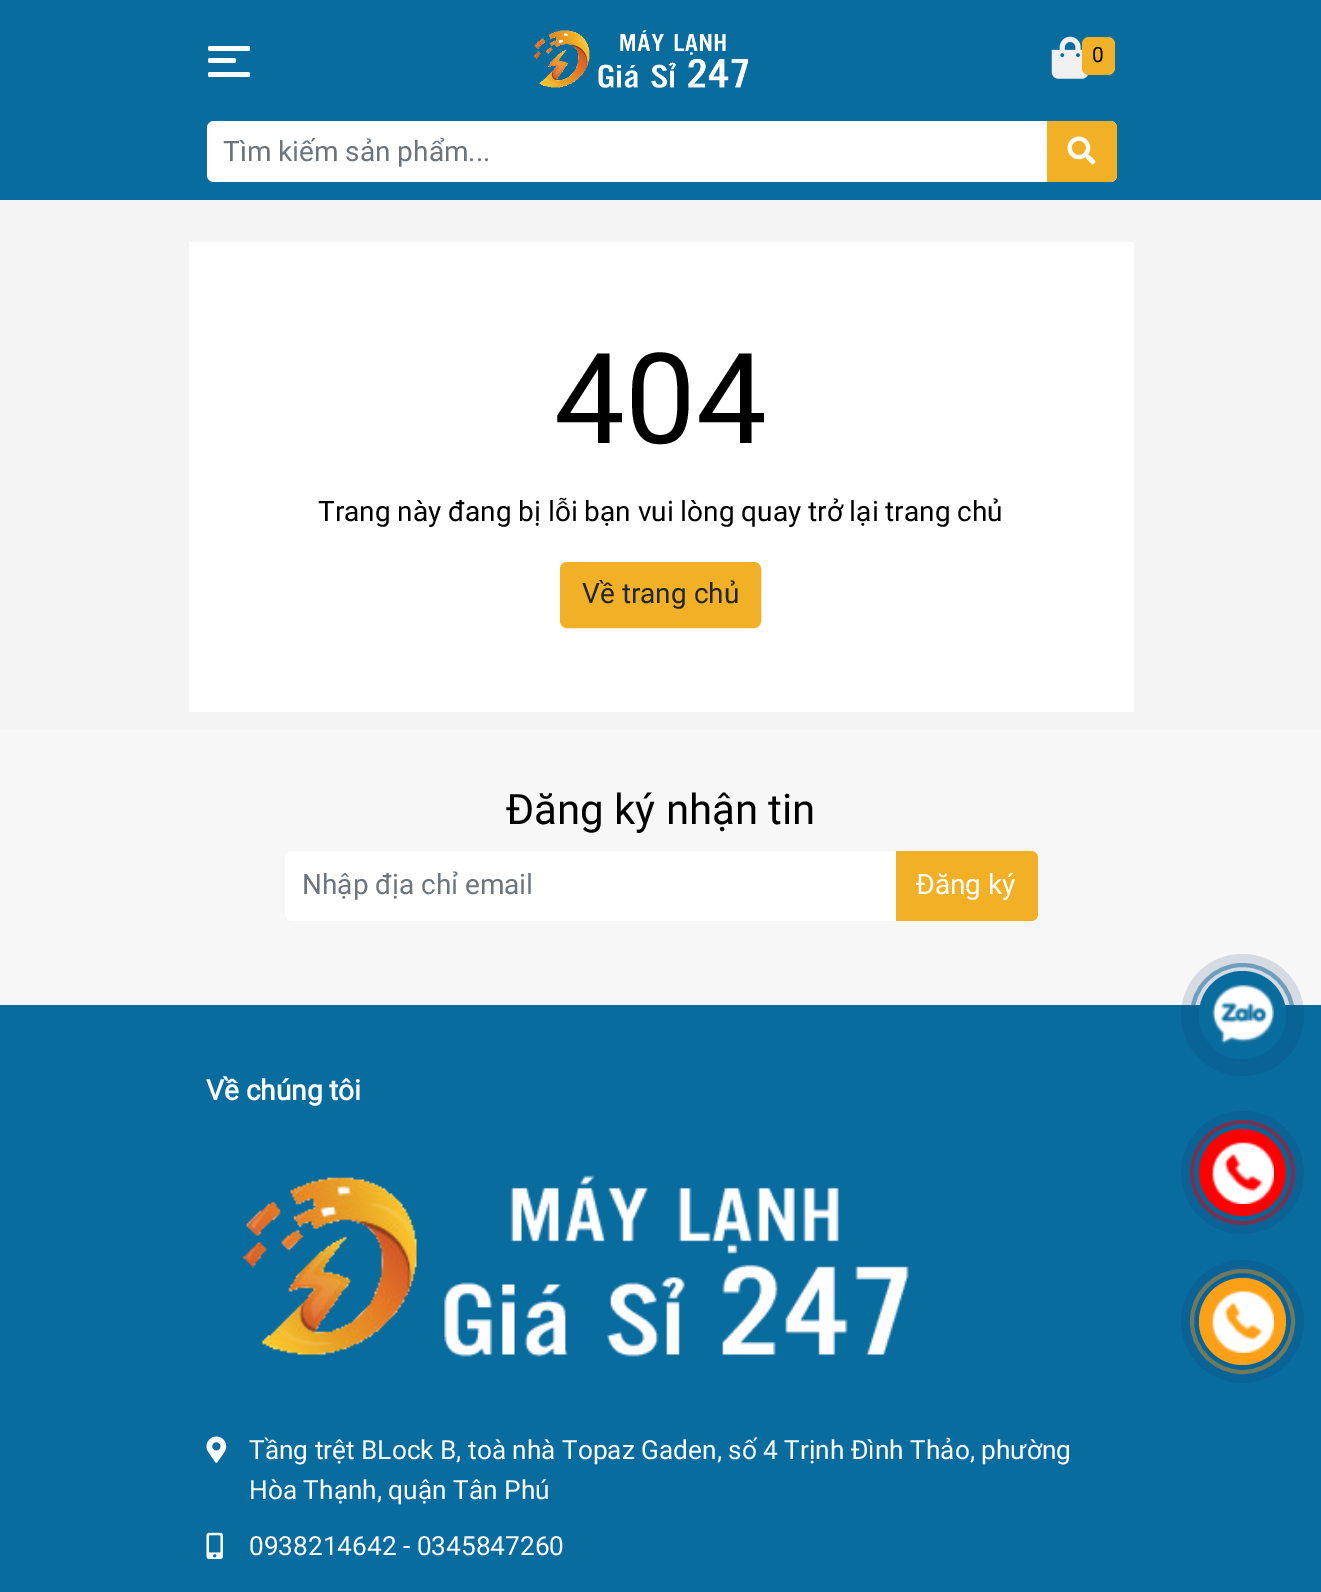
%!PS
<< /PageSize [1321 1592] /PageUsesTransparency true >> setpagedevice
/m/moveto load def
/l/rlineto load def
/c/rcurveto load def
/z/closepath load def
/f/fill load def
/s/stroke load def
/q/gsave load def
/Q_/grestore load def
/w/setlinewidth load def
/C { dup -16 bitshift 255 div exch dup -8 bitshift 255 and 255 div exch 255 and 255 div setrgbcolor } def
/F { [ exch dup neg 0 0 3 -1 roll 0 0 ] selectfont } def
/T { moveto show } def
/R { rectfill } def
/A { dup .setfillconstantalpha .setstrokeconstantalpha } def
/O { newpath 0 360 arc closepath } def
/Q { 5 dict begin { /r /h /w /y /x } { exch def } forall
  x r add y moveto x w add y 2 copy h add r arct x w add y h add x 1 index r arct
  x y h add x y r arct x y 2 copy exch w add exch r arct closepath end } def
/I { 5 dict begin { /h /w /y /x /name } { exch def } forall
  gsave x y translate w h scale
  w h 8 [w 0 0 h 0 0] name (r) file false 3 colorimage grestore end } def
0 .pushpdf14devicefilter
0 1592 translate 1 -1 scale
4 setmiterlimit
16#F4F4F4 C
0 0 1321 1592 R
16#096C9E C
0 0 1321 200 R
16#FFFFFF C
208 46 42 5 2 Q f
208 58 28 5 2 Q f
208 72 42 5 2 Q f
(1.rgb) 533 30 216 58 I
(2.rgb) 1051 36 38 43 I
16#F2B026 C
1082 37 33 38 7 Q f
/Roboto-Regular 21 F
16#000000 C
(0) 1092 62 T
16#FFFFFF C
207 121 910 61 7 Q f
/Roboto-Regular 28 F
16#6C757D C
(Tìm kiếm sản phẩm...) 223 161 T
16#F2B026 C
1047 121 m 63 0 l 4 0 7 3 7 7 c 0 47 l 0 4 -3 7 -7 7 c -63 0 l z f
(3.rgb) 1067 136 29 29 I
16#FFFFFF C
189 242 945 470 R
/Roboto-Regular 126 F
16#000000 C
(404) 554 443 T
/Roboto-Regular 28 F
(Trang này đang bị lỗi bạn vui lòng quay trở lại trang chủ) 318 521 T
16#F2B026 C
561 563 199 64 6 Q q f Q_
2 w
s
16#212529 C
(Về trang chủ) 582 603 T
16#F7F7F7 C
0 730 1321 275 R
/Roboto-Regular 42 F
16#000000 C
(Đăng ký nhận tin) 506 824 T
16#FFFFFF C
285 851 753 70 7 Q f
/Roboto-Regular 28 F
16#6C757D C
(Nhập địa chỉ email) 302 894 T
16#F2B026 C
896 851 m 135 0 l 4 0 7 3 7 7 c 0 56 l 0 4 -3 7 -7 7 c -135 0 l z f
16#FFFFFF C
(Đăng ký) 916 894 T
16#096C9E C
0 1005 1321 587 R
/Roboto-Bold 28 F
16#FFFFFF C
(Về chúng tôi) 206 1100 T
(4.rgb) 242 1175 667 182 I
(5.rgb) 206 1436 21 27 I
/Roboto-Regular 26.25 F
(Tầng trệt BLock B, toà nhà Topaz Gaden, số 4 Trịnh Đình Thảo, phường) 249 1459 T
(Hòa Thạnh, quận Tân Phú) 249 1499 T
(6.rgb) 206 1532 17 27 I
(0938214642 - 0345847260) 249 1555 T
0.5 A
16#096C9E C
4 w
1242.5 1015.5 50.5 O s
0.14 A
16#072967 C
1181 954 123 122 61 Q f
1 A
16#096C9E C
1199 971 87 88 43.5 Q f
(7.rgb) 1212 984 62 60 I
16#84364F C
1242.5 1172.5 50.5 O s
0.14 A
16#072967 C
1242.5 1172.5 61.5 O f
1 A
16#FF0000 C
1242.5 1172.5 43.5 O f
(8.rgb) 1212 1142 62 62 I
16#83865B C
1242.5 1321.5 50.5 O s
0.14 A
16#072967 C
1242.5 1321.5 61.5 O f
1 A
16#FCA018 C
1242.5 1321.5 43.5 O f
(9.rgb) 1212 1291 62 62 I
.poppdf14devicefilter showpage
